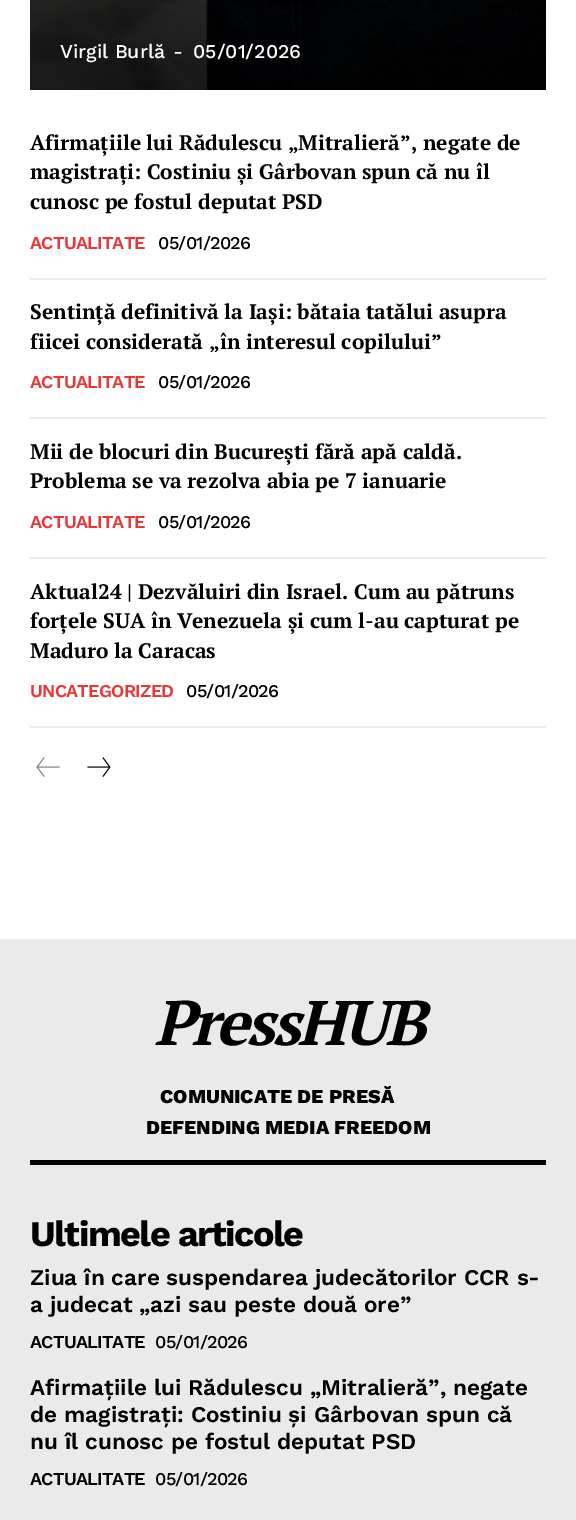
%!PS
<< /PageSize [576 1520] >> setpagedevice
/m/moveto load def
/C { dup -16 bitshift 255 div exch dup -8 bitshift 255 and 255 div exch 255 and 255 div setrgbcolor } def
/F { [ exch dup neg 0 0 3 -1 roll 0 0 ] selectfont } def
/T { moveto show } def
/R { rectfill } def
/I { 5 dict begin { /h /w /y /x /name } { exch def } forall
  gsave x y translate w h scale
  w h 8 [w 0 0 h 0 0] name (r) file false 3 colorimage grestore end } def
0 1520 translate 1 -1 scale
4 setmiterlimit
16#FFFFFF C
0 0 576 1520 R
(1.rgb) 30 0 516 90 I
/WorkSans-Medium 19.5 F
(Virgil Burlă) 60 58 T
/WorkSans-Regular 19.5 F
(-) 173 58 T
/WorkSans-Medium 19.5 F
(05/01/2026) 193 58 T
16#EAEAEA C
30 278 516 2 R
/PTSerif-Bold 21 F
16#000000 C
(Afirmațiile lui Rădulescu „Mitralieră”, negate de) 30 150 T
(magistrați: Costiniu și Gârbovan spun că nu îl) 30 179 T
(cunosc pe fostul deputat PSD) 30 209 T
/WorkSans-SemiBold 18 F
16#EC3535 C
30 249 m -.75 0 (ACTUALITATE) ashow
/WorkSans-Medium 18 F
16#000000 C
158 249 m -.75 0 (05/01/2026) ashow
16#EAEAEA C
30 417 516 2 R
/PTSerif-Bold 21 F
16#000000 C
(Sentință definitivă la Iași: bătaia tatălui asupra) 30 319 T
(fiicei considerată „în interesul copilului”) 30 349 T
/WorkSans-SemiBold 18 F
16#EC3535 C
30 388 m -.75 0 (ACTUALITATE) ashow
/WorkSans-Medium 18 F
16#000000 C
158 388 m -.75 0 (05/01/2026) ashow
16#EAEAEA C
30 557 516 2 R
/PTSerif-Bold 21 F
16#000000 C
(Mii de blocuri din București fără apă caldă.) 30 459 T
(Problema se va rezolva abia pe 7 ianuarie) 30 488 T
/WorkSans-SemiBold 18 F
16#EC3535 C
30 528 m -.75 0 (ACTUALITATE) ashow
/WorkSans-Medium 18 F
16#000000 C
158 528 m -.75 0 (05/01/2026) ashow
16#EAEAEA C
30 726 516 2 R
/PTSerif-Bold 21 F
16#000000 C
(Aktual24 | Dezvăluiri din Israel. Cum au pătruns) 30 599 T
(forțele SUA în Venezuela și cum l-au capturat pe) 30 628 T
(Maduro la Caracas) 30 658 T
/WorkSans-SemiBold 18 F
16#EC3535 C
30 697 m -.75 0 (UNCATEGORIZED) ashow
/WorkSans-Medium 18 F
16#000000 C
186 697 m -.75 0 (05/01/2026) ashow
(2.rgb) 36 757 24 20 I
(3.rgb) 87 757 24 20 I
16#EAEAEA C
0 939 576 581 R
16#000000 C
30 1160 516 5 R
/PTSerif-BoldItalic 63 F
154 1045 m -3 0 (PressHUB) ashow
/WorkSans-ExtraBold 19.5 F
(COMUNICATE DE PRESĂ) 160 1103 T
(DEFENDING MEDIA FREEDOM) 146 1134 T
/WorkSans-Bold 36 F
30 1246 m -1.5 0 (Ultimele articole) ashow
/WorkSans-SemiBold 22.5 F
(Ziua în care suspendarea judecătorilor CCR s-) 30 1285 T
(a judecat „azi sau peste două ore”) 30 1312 T
/WorkSans-SemiBold 18 F
30 1348 m -.75 0 (ACTUALITATE) ashow
/WorkSans-Medium 18 F
155 1348 m -.75 0 (05/01/2026) ashow
/WorkSans-SemiBold 22.5 F
(Afirmațiile lui Rădulescu „Mitralieră”, negate) 30 1395 T
(de magistrați: Costiniu și Gârbovan spun că) 30 1422 T
(nu îl cunosc pe fostul deputat PSD) 30 1449 T
/WorkSans-SemiBold 18 F
30 1485 m -.75 0 (ACTUALITATE) ashow
/WorkSans-Medium 18 F
155 1485 m -.75 0 (05/01/2026) ashow
showpage
